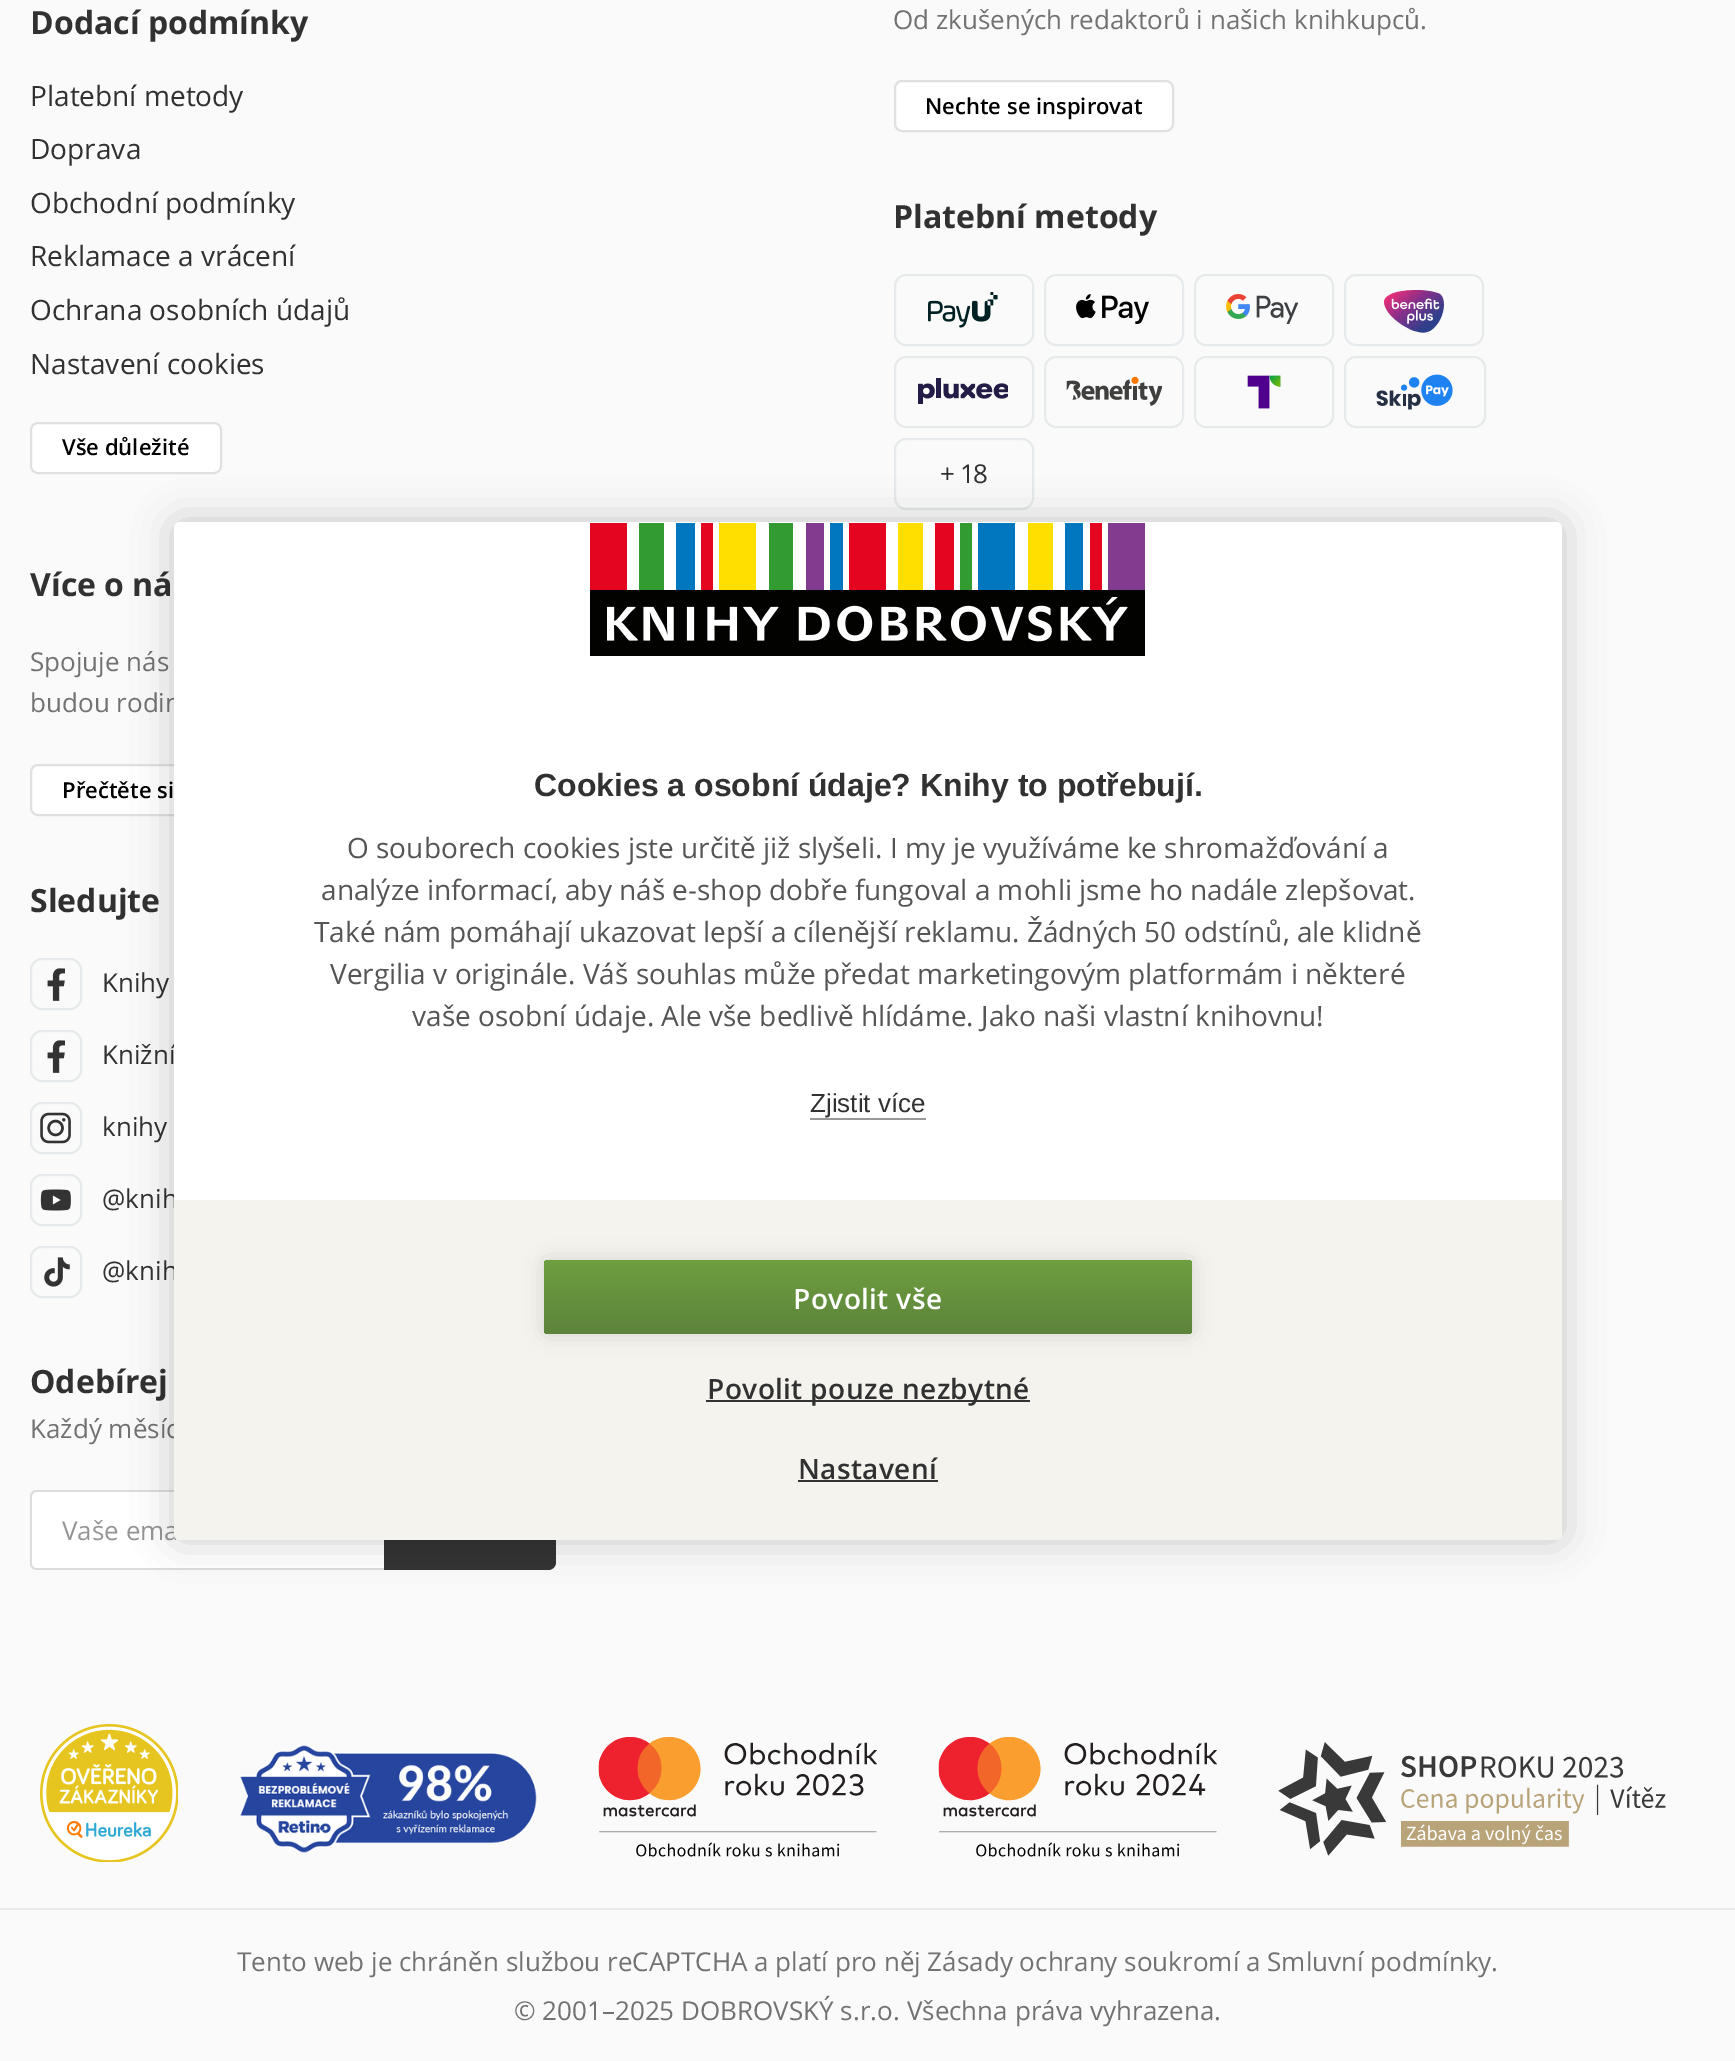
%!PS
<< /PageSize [1735 2061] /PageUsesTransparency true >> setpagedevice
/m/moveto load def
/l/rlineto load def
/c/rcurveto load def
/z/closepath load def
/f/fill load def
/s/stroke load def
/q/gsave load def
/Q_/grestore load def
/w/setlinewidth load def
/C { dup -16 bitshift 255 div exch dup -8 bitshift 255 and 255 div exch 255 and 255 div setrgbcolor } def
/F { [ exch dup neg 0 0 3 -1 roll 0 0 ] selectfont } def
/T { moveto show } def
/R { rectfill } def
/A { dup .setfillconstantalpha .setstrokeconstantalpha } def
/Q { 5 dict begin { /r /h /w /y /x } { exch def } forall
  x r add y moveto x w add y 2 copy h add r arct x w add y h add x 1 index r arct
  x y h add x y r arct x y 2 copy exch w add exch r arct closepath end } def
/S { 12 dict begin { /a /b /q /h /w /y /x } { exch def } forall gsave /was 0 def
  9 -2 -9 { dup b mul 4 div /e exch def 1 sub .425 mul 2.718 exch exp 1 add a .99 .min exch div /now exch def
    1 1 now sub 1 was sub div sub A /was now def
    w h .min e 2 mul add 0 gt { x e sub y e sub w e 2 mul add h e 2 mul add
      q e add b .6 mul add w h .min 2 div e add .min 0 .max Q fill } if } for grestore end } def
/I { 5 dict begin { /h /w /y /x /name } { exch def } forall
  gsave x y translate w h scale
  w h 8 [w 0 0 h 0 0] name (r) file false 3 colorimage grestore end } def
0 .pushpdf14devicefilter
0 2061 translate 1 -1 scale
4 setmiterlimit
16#FAFAFA C
0 0 1735 2061 R
/OpenSans-Bold 32 F
16#313131 C
(Dodací podmínky) 30 34 T
/OpenSans-Regular 28 F
(Platební metody) 30 106 T
(Doprava) 30 159 T
(Obchodní podmínky) 30 213 T
(Reklamace a vrácení) 30 266 T
(Ochrana osobních údajů) 30 320 T
(Nastavení cookies) 30 374 T
16#FFFFFF C
31 423 190 50 7 Q q f Q_
16#E0E0E0 C
2 w
s
/OpenSans-SemiBold 22 F
16#000000 C
(Vše důležité) 62 455 T
/OpenSans-Regular 26 F
16#727272 C
(Od zkušených redaktorů i našich knihkupců.) 893 29 T
16#FFFFFF C
895 81 278 50 7 Q q f Q_
16#E0E0E0 C
s
/OpenSans-SemiBold 22 F
16#000000 C
(Nechte se inspirovat) 925 114 T
/OpenSans-Bold 32 F
16#313131 C
(Platební metody) 893 228 T
16#E7EAEC C
895 275 138 70 11 Q s
(1.rgb) 928 292 70 36 I
1045 275 138 70 11 Q s
(2.rgb) 1076 294 73 30 I
1195 275 138 70 11 Q s
(3.rgb) 1226 294 73 30 I
1345 275 138 70 11 Q s
(4.rgb) 1384 290 60 43 I
895 357 138 70 11 Q s
(5.rgb) 918 378 90 26 I
1045 357 138 70 11 Q s
(6.rgb) 1066 376 96 30 I
1195 357 138 70 11 Q s
(7.rgb) 1247 375 34 34 I
1345 357 140 70 11 Q s
(8.rgb) 1376 374 77 36 I
895 439 138 70 11 Q s
/OpenSans-Regular 26 F
16#313131 C
940 483 m -1 0 (+ 18) ashow
/OpenSans-Bold 32 F
(Více o ná) 30 596 T
/OpenSans-Regular 26 F
16#727272 C
(Spojuje nás) 30 671 T
(budou rodin) 30 712 T
16#FFFFFF C
31 765 292 50 7 Q q f Q_
16#E0E0E0 C
s
/OpenSans-SemiBold 22 F
16#000000 C
(Přečtěte si) 62 798 T
/OpenSans-Bold 32 F
16#313131 C
(Sledujte) 30 912 T
16#E7EAEC C
31 959 50 50 11 Q s
(9.rgb) 47 968 18 33 I
/OpenSans-Regular 26 F
16#313131 C
(Knihy) 102 992 T
16#E7EAEC C
31 1031 50 50 11 Q s
(9.rgb) 47 1040 18 33 I
16#313131 C
(Knižní) 102 1064 T
16#E7EAEC C
31 1103 50 50 11 Q s
(10.rgb) 40 1112 31 32 I
16#313131 C
(knihy) 102 1136 T
16#E7EAEC C
31 1175 50 50 11 Q s
(11.rgb) 40 1189 31 22 I
16#313131 C
(@knih) 102 1208 T
16#E7EAEC C
31 1247 50 50 11 Q s
(12.rgb) 44 1257 26 30 I
16#313131 C
(@knih) 102 1280 T
/OpenSans-Bold 32 F
(Odebírej) 30 1393 T
/OpenSans-Regular 26 F
16#727272 C
(Každý měsíc) 30 1438 T
16#FFFFFF C
36 1490 m 348 0 l 0 80 l -348 0 l -3.5 0 -6 -2.5 -6 -6 c 0 -68 l 0 -3.5 2.5 -6 6 -6 c z f
16#DDDBDB C
36 1490 m 348 0 l 0 80 l -348 0 l -3 0 -6 -3 -6 -6 c 0 -68 l 0 -3 3 -6 6 -6 c z 36 1492 m 348 0 l 0 76 l -348 0 l -2 0 -4 -2 -4 -4 c 0 -68 l 0 -2 2 -4 4 -4 c z eofill
16#959595 C
(Vaše ema) 62 1540 T
16#333333 C
384 1490 m 164 0 l 4.5 0 8 3.5 8 8 c 0 64 l 0 4.5 -3.5 8 -8 8 c -164 0 l z f
(13.rgb) 40 1724 138 138 I
(14.rgb) 239 1744 298 110 I
(15.rgb) 598 1737 279 120 I
(16.rgb) 938 1737 279 120 I
(17.rgb) 1278 1742 388 114 I
16#E7EAEC C
0 1908 1735 2 R
16#727272 C
(Tento web je chráněn službou reCAPTCHA a platí pro něj Zásady ochrany soukromí a Smluvní podmínky.) 237 1971 T
(© 2001–2025 DOBROVSKÝ s.r.o. Všechna práva vyhrazena.) 514 2020 T
16#000000 C
174 522 1388 1018 6 20 .2 S
16#FFFFFF C
174 522 1388 1018 6 Q f
(18.rgb) 590 523 555 133 I
/LiberationSans-Bold 32 F
16#313131 C
(Cookies a osobní údaje? Knihy to potřebují.) 534 796 T
/OpenSans-Regular 28 F
16#555555 C
(O souborech cookies jste určitě již slyšeli. I my je využíváme ke shromažďování a) 347 858 T
(analýze informací, aby náš e-shop dobře fungoval a mohli jsme ho nadále zlepšovat.) 321 900 T
(Také nám pomáhají ukazovat lepší a cílenější reklamu. Žádných 50 odstínů, ale klidně) 314 942 T
(Vergilia v originále. Váš souhlas může předat marketingovým platformám i některé) 330 984 T
(vaše osobní údaje. Ale vše bedlivě hlídáme. Jako naši vlastní knihovnu!) 412 1026 T
/LiberationSans-Regular 26 F
16#313131 C
(Zjistit více) 810 1112 T
16#999999 C
810 1118 116 2 R
16#F4F3ED C
174 1200 m 1388 0 l 0 334 l 0 3.5 -2.5 6 -6 6 c -1376 0 l -3.5 0 -6 -2.5 -6 -6 c z f
16#000000 C
544 1260 648 74 4 10 .12 S
q 544 1260 648 74 4 Q clip newpath
<< /ShadingType 2 /ColorSpace /DeviceRGB /Coords [868 1261 868 1335] /Extend [true true] /Function << /FunctionType 2 /Domain [0 1] /C0 [.431 .62 .247] /C1 [.365 .518 .235] /N 1 >> >> shfill Q_
/OpenSans-SemiBold 28 F
16#FFFFFF C
793 1309 m .4 0 (Povolit vše) ashow
16#333333 C
706 1400 324 2 R
16#313131 C
707 1399 m .4 0 (Povolit pouze nezbytné) ashow
798 1479 m .4 0 (Nastavení) ashow
16#333333 C
798 1480 140 2 R
.poppdf14devicefilter showpage
